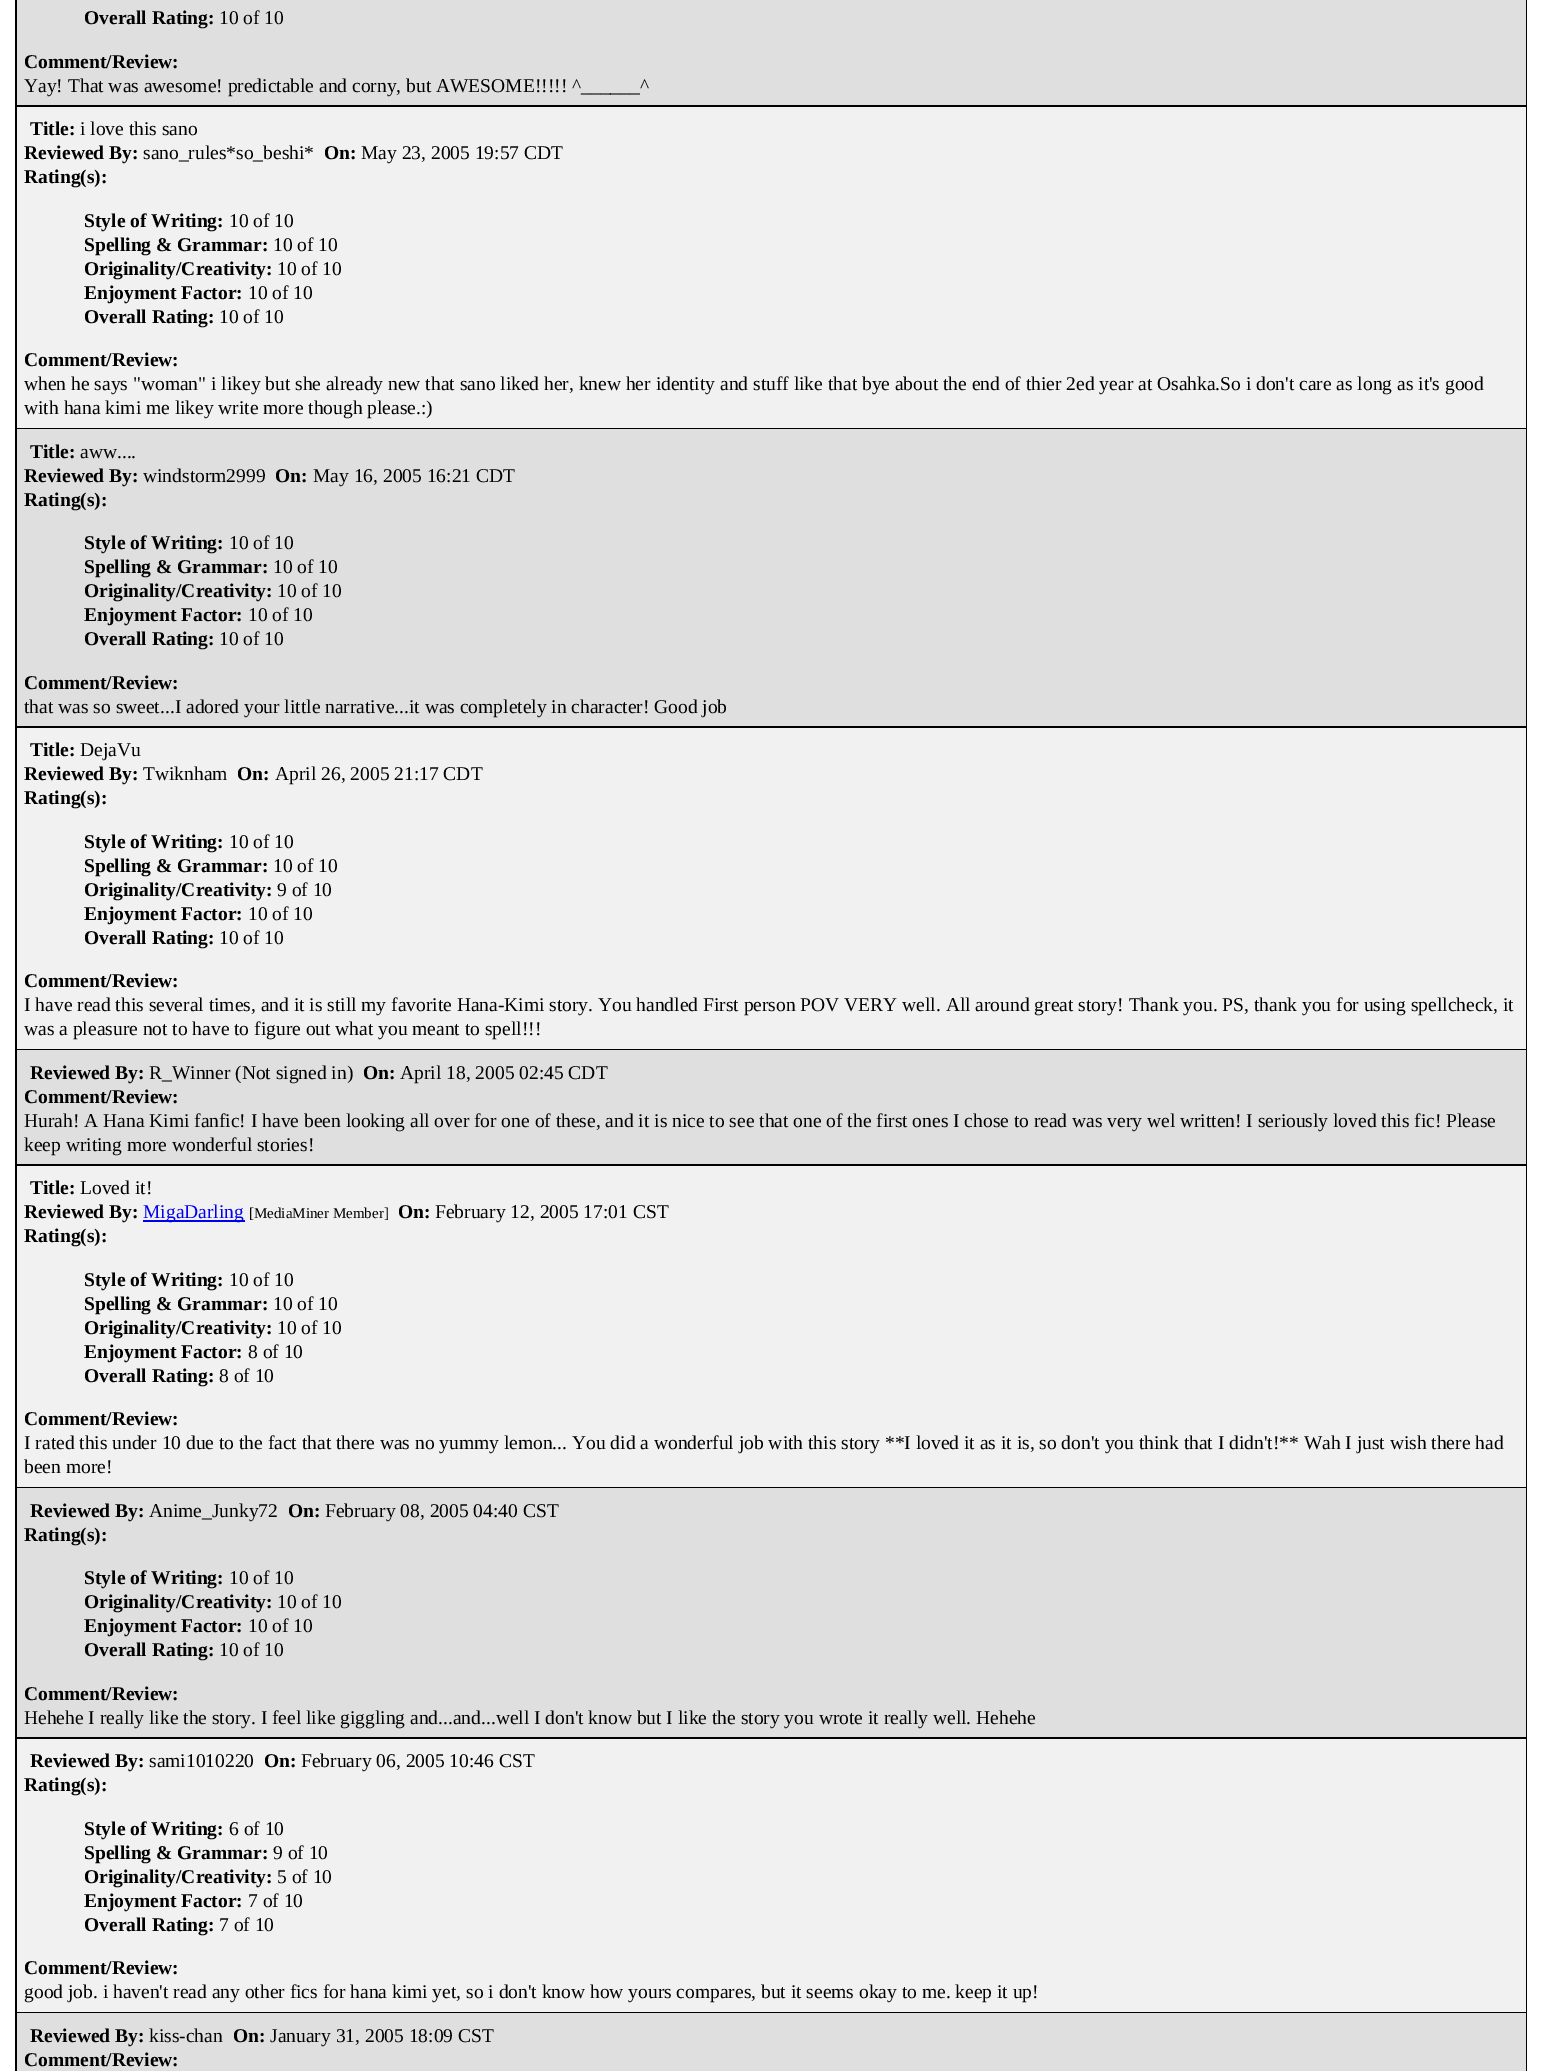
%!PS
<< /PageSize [1542 2071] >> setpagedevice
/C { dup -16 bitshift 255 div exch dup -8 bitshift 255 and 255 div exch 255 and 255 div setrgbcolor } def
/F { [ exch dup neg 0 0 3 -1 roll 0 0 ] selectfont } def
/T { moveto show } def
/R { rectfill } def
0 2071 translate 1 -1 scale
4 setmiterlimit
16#FFFFFF C
0 0 1542 2071 R
16#000000 C
15 0 1512 2071 R
16#DFDFDF C
17 0 1509 105 R
/LiberationSerif-Bold 19.5 F
16#000000 C
(Overall Rating:) 84 24 T
/LiberationSerif-Regular 19.5 F
(10 of 10) 219 24 T
/LiberationSerif-Bold 19.5 F
(Comment/Review:) 24 68 T
/LiberationSerif-Regular 19.5 F
(Yay! That was awesome! predictable and corny, but AWESOME!!!!! ^______^) 24 92 T
16#F1F1F1 C
17 107 1509 321 R
/LiberationSerif-Bold 19.5 F
16#000000 C
(Title:) 30 135 T
/LiberationSerif-Regular 19.5 F
(i love this sano) 80 135 T
/LiberationSerif-Bold 19.5 F
(Reviewed By:) 24 159 T
/LiberationSerif-Regular 19.5 F
(sano_rules*so_beshi*) 143 159 T
/LiberationSerif-Bold 19.5 F
(On:) 324 159 T
/LiberationSerif-Regular 19.5 F
(May 23, 2005 19:57 CDT) 361 159 T
/LiberationSerif-Bold 19.5 F
(Rating\(s\):) 24 183 T
(Style of Writing:) 84 227 T
/LiberationSerif-Regular 19.5 F
(10 of 10) 229 227 T
/LiberationSerif-Bold 19.5 F
(Spelling & Grammar:) 84 251 T
/LiberationSerif-Regular 19.5 F
(10 of 10) 273 251 T
/LiberationSerif-Bold 19.5 F
(Originality/Creativity:) 84 275 T
/LiberationSerif-Regular 19.5 F
(10 of 10) 277 275 T
/LiberationSerif-Bold 19.5 F
(Enjoyment Factor:) 84 299 T
/LiberationSerif-Regular 19.5 F
(10 of 10) 248 299 T
/LiberationSerif-Bold 19.5 F
(Overall Rating:) 84 323 T
/LiberationSerif-Regular 19.5 F
(10 of 10) 219 323 T
/LiberationSerif-Bold 19.5 F
(Comment/Review:) 24 366 T
/LiberationSerif-Regular 19.5 F
(when he says "woman" i likey but she already new that sano liked her, knew her identity and stuff like that bye about the end of thier 2ed year at Osahka.So i don't care as long as it's good) 24 390 T
(with hana kimi me likey write more though please.:\)) 24 414 T
16#DFDFDF C
17 429 1509 297 R
/LiberationSerif-Bold 19.5 F
16#000000 C
(Title:) 30 458 T
/LiberationSerif-Regular 19.5 F
(aww....) 80 458 T
/LiberationSerif-Bold 19.5 F
(Reviewed By:) 24 482 T
/LiberationSerif-Regular 19.5 F
(windstorm2999) 143 482 T
/LiberationSerif-Bold 19.5 F
(On:) 275 482 T
/LiberationSerif-Regular 19.5 F
(May 16, 2005 16:21 CDT) 313 482 T
/LiberationSerif-Bold 19.5 F
(Rating\(s\):) 24 506 T
(Style of Writing:) 84 549 T
/LiberationSerif-Regular 19.5 F
(10 of 10) 229 549 T
/LiberationSerif-Bold 19.5 F
(Spelling & Grammar:) 84 573 T
/LiberationSerif-Regular 19.5 F
(10 of 10) 273 573 T
/LiberationSerif-Bold 19.5 F
(Originality/Creativity:) 84 597 T
/LiberationSerif-Regular 19.5 F
(10 of 10) 277 597 T
/LiberationSerif-Bold 19.5 F
(Enjoyment Factor:) 84 621 T
/LiberationSerif-Regular 19.5 F
(10 of 10) 248 621 T
/LiberationSerif-Bold 19.5 F
(Overall Rating:) 84 645 T
/LiberationSerif-Regular 19.5 F
(10 of 10) 219 645 T
/LiberationSerif-Bold 19.5 F
(Comment/Review:) 24 689 T
/LiberationSerif-Regular 19.5 F
(that was so sweet...I adored your little narrative...it was completely in character! Good job) 24 713 T
16#F1F1F1 C
17 728 1509 321 R
/LiberationSerif-Bold 19.5 F
16#000000 C
(Title:) 30 756 T
/LiberationSerif-Regular 19.5 F
(DejaVu) 80 756 T
/LiberationSerif-Bold 19.5 F
(Reviewed By:) 24 780 T
/LiberationSerif-Regular 19.5 F
(Twiknham) 143 780 T
/LiberationSerif-Bold 19.5 F
(On:) 237 780 T
/LiberationSerif-Regular 19.5 F
(April 26, 2005 21:17 CDT) 275 780 T
/LiberationSerif-Bold 19.5 F
(Rating\(s\):) 24 804 T
(Style of Writing:) 84 848 T
/LiberationSerif-Regular 19.5 F
(10 of 10) 229 848 T
/LiberationSerif-Bold 19.5 F
(Spelling & Grammar:) 84 872 T
/LiberationSerif-Regular 19.5 F
(10 of 10) 273 872 T
/LiberationSerif-Bold 19.5 F
(Originality/Creativity:) 84 896 T
/LiberationSerif-Regular 19.5 F
(9 of 10) 277 896 T
/LiberationSerif-Bold 19.5 F
(Enjoyment Factor:) 84 920 T
/LiberationSerif-Regular 19.5 F
(10 of 10) 248 920 T
/LiberationSerif-Bold 19.5 F
(Overall Rating:) 84 944 T
/LiberationSerif-Regular 19.5 F
(10 of 10) 219 944 T
/LiberationSerif-Bold 19.5 F
(Comment/Review:) 24 987 T
/LiberationSerif-Regular 19.5 F
(I have read this several times, and it is still my favorite Hana-Kimi story. You handled First person POV VERY well. All around great story! Thank you. PS, thank you for using spellcheck, it) 24 1011 T
(was a pleasure not to have to figure out what you meant to spell!!!) 24 1035 T
16#DFDFDF C
17 1050 1509 114 R
/LiberationSerif-Bold 19.5 F
16#000000 C
(Reviewed By:) 30 1079 T
/LiberationSerif-Regular 19.5 F
(R_Winner \(Not signed in\)) 149 1079 T
/LiberationSerif-Bold 19.5 F
(On:) 363 1079 T
/LiberationSerif-Regular 19.5 F
(April 18, 2005 02:45 CDT) 400 1079 T
/LiberationSerif-Bold 19.5 F
(Comment/Review:) 24 1103 T
/LiberationSerif-Regular 19.5 F
(Hurah! A Hana Kimi fanfic! I have been looking all over for one of these, and it is nice to see that one of the first ones I chose to read was very wel written! I seriously loved this fic! Please) 24 1127 T
(keep writing more wonderful stories!) 24 1151 T
16#F1F1F1 C
17 1166 1509 321 R
/LiberationSerif-Bold 19.5 F
16#000000 C
(Title:) 30 1194 T
/LiberationSerif-Regular 19.5 F
(Loved it!) 80 1194 T
/LiberationSerif-Bold 19.5 F
(Reviewed By:) 24 1218 T
16#0000EE C
143 1220 102 2 R
/LiberationSerif-Regular 19.5 F
(MigaDarling) 143 1218 T
/LiberationSerif-Regular 15 F
16#000000 C
([MediaMiner Member]) 249 1218 T
/LiberationSerif-Bold 19.5 F
(On:) 398 1218 T
/LiberationSerif-Regular 19.5 F
(February 12, 2005 17:01 CST) 435 1218 T
/LiberationSerif-Bold 19.5 F
(Rating\(s\):) 24 1242 T
(Style of Writing:) 84 1286 T
/LiberationSerif-Regular 19.5 F
(10 of 10) 229 1286 T
/LiberationSerif-Bold 19.5 F
(Spelling & Grammar:) 84 1310 T
/LiberationSerif-Regular 19.5 F
(10 of 10) 273 1310 T
/LiberationSerif-Bold 19.5 F
(Originality/Creativity:) 84 1334 T
/LiberationSerif-Regular 19.5 F
(10 of 10) 277 1334 T
/LiberationSerif-Bold 19.5 F
(Enjoyment Factor:) 84 1358 T
/LiberationSerif-Regular 19.5 F
(8 of 10) 248 1358 T
/LiberationSerif-Bold 19.5 F
(Overall Rating:) 84 1382 T
/LiberationSerif-Regular 19.5 F
(8 of 10) 219 1382 T
/LiberationSerif-Bold 19.5 F
(Comment/Review:) 24 1425 T
/LiberationSerif-Regular 19.5 F
(I rated this under 10 due to the fact that there was no yummy lemon... You did a wonderful job with this story **I loved it as it is, so don't you think that I didn't!** Wah I just wish there had) 24 1449 T
(been more!) 24 1473 T
16#DFDFDF C
17 1488 1509 249 R
/LiberationSerif-Bold 19.5 F
16#000000 C
(Reviewed By:) 30 1517 T
/LiberationSerif-Regular 19.5 F
(Anime_Junky72) 149 1517 T
/LiberationSerif-Bold 19.5 F
(On:) 288 1517 T
/LiberationSerif-Regular 19.5 F
(February 08, 2005 04:40 CST) 325 1517 T
/LiberationSerif-Bold 19.5 F
(Rating\(s\):) 24 1541 T
(Style of Writing:) 84 1584 T
/LiberationSerif-Regular 19.5 F
(10 of 10) 229 1584 T
/LiberationSerif-Bold 19.5 F
(Originality/Creativity:) 84 1608 T
/LiberationSerif-Regular 19.5 F
(10 of 10) 277 1608 T
/LiberationSerif-Bold 19.5 F
(Enjoyment Factor:) 84 1632 T
/LiberationSerif-Regular 19.5 F
(10 of 10) 248 1632 T
/LiberationSerif-Bold 19.5 F
(Overall Rating:) 84 1656 T
/LiberationSerif-Regular 19.5 F
(10 of 10) 219 1656 T
/LiberationSerif-Bold 19.5 F
(Comment/Review:) 24 1700 T
/LiberationSerif-Regular 19.5 F
(Hehehe I really like the story. I feel like giggling and...and...well I don't know but I like the story you wrote it really well. Hehehe) 24 1724 T
16#F1F1F1 C
17 1739 1509 273 R
/LiberationSerif-Bold 19.5 F
16#000000 C
(Reviewed By:) 30 1767 T
/LiberationSerif-Regular 19.5 F
(sami1010220) 149 1767 T
/LiberationSerif-Bold 19.5 F
(On:) 264 1767 T
/LiberationSerif-Regular 19.5 F
(February 06, 2005 10:46 CST) 301 1767 T
/LiberationSerif-Bold 19.5 F
(Rating\(s\):) 24 1791 T
(Style of Writing:) 84 1835 T
/LiberationSerif-Regular 19.5 F
(6 of 10) 229 1835 T
/LiberationSerif-Bold 19.5 F
(Spelling & Grammar:) 84 1859 T
/LiberationSerif-Regular 19.5 F
(9 of 10) 273 1859 T
/LiberationSerif-Bold 19.5 F
(Originality/Creativity:) 84 1883 T
/LiberationSerif-Regular 19.5 F
(5 of 10) 277 1883 T
/LiberationSerif-Bold 19.5 F
(Enjoyment Factor:) 84 1907 T
/LiberationSerif-Regular 19.5 F
(7 of 10) 248 1907 T
/LiberationSerif-Bold 19.5 F
(Overall Rating:) 84 1931 T
/LiberationSerif-Regular 19.5 F
(7 of 10) 219 1931 T
/LiberationSerif-Bold 19.5 F
(Comment/Review:) 24 1974 T
/LiberationSerif-Regular 19.5 F
(good job. i haven't read any other fics for hana kimi yet, so i don't know how yours compares, but it seems okay to me. keep it up!) 24 1998 T
16#DFDFDF C
17 2013 1509 58 R
/LiberationSerif-Bold 19.5 F
16#000000 C
(Reviewed By:) 30 2042 T
/LiberationSerif-Regular 19.5 F
(kiss-chan) 149 2042 T
/LiberationSerif-Bold 19.5 F
(On:) 233 2042 T
/LiberationSerif-Regular 19.5 F
(January 31, 2005 18:09 CST) 270 2042 T
/LiberationSerif-Bold 19.5 F
(Comment/Review:) 24 2066 T
showpage
